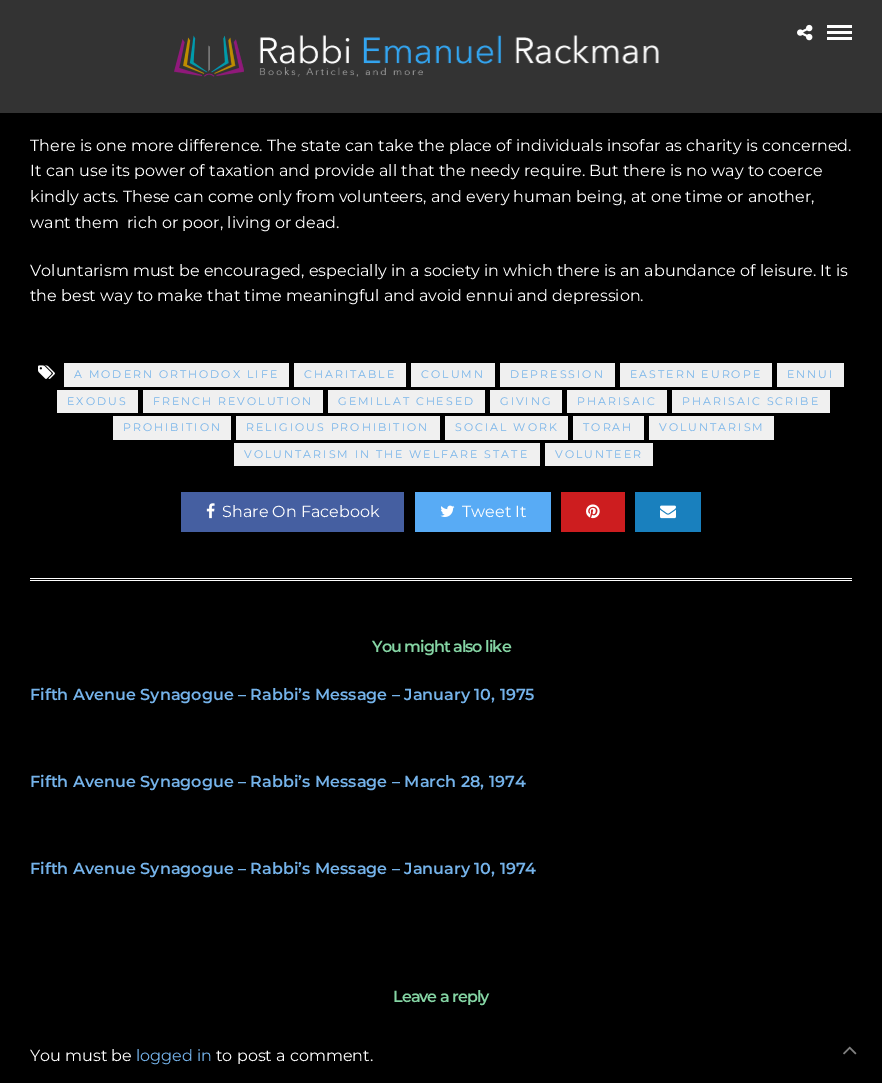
%!PS
<< /PageSize [882 1083] >> setpagedevice
/m/moveto load def
/C { dup -16 bitshift 255 div exch dup -8 bitshift 255 and 255 div exch 255 and 255 div setrgbcolor } def
/F { [ exch dup neg 0 0 3 -1 roll 0 0 ] selectfont } def
/T { moveto show } def
/R { rectfill } def
/I { 5 dict begin { /h /w /y /x /name } { exch def } forall
  gsave x y translate w h scale
  w h 8 [w 0 0 h 0 0] name (r) file false 3 colorimage grestore end } def
0 1083 translate 1 -1 scale
4 setmiterlimit
16#000000 C
0 0 882 1083 R
16#333333 C
0 0 882 113 R
(1.rgb) 797 24 16 17 I
16#FFFFFF C
827 25 25 3 R
827 31 25 3 R
827 37 25 3 R
(2.rgb) 174 35 485 42 I
/Montserrat-Regular 16 F
(There is one more difference. The state can take the place of individuals insofar as charity is concerned.) 30 151 T
(It can use its power of taxation and provide all that the needy require. But there is no way to coerce) 30 176 T
(kindly acts. These can come only from volunteers, and every human being, at one time or another,) 30 202 T
(want them) 30 228 T
(rich or poor, living or dead.) 127 228 T
(Voluntarism must be encouraged, especially in a society in which there is an abundance of leisure. It is) 30 276 T
(the best way to make that time meaningful and avoid ennui and depression.) 30 301 T
(3.rgb) 38 365 17 14 I
16#F0F0F0 C
64 363 225 24 R
/Montserrat-Regular 11 F
16#75B3EA C
74 378 m 2 0 (A MODERN ORTHODOX LIFE) ashow
16#F0F0F0 C
294 363 112 24 R
16#75B3EA C
304 378 m 2 0 (CHARITABLE) ashow
16#F0F0F0 C
411 363 84 24 R
16#75B3EA C
421 378 m 2 0 (COLUMN) ashow
16#F0F0F0 C
500 363 115 24 R
16#75B3EA C
510 378 m 2 0 (DEPRESSION) ashow
16#F0F0F0 C
620 363 152 24 R
16#75B3EA C
630 378 m 2 0 (EASTERN EUROPE) ashow
16#F0F0F0 C
777 363 67 24 R
16#75B3EA C
787 378 m 2 0 (ENNUI) ashow
16#F0F0F0 C
57 390 81 23 R
16#75B3EA C
67 405 m 2 0 (EXODUS) ashow
16#F0F0F0 C
143 390 180 23 R
16#75B3EA C
153 405 m 2 0 (FRENCH REVOLUTION) ashow
16#F0F0F0 C
328 390 157 23 R
16#75B3EA C
338 405 m 2 0 (GEMILLAT CHESED) ashow
16#F0F0F0 C
490 390 72 23 R
16#75B3EA C
500 405 m 2 0 (GIVING) ashow
16#F0F0F0 C
567 390 100 23 R
16#75B3EA C
577 405 m 2 0 (PHARISAIC) ashow
16#F0F0F0 C
672 390 158 23 R
16#75B3EA C
682 405 m 2 0 (PHARISAIC SCRIBE) ashow
16#F0F0F0 C
113 416 118 24 R
16#75B3EA C
123 431 m 2 0 (PROHIBITION) ashow
16#F0F0F0 C
236 416 204 24 R
16#75B3EA C
246 431 m 2 0 (RELIGIOUS PROHIBITION) ashow
16#F0F0F0 C
445 416 123 24 R
16#75B3EA C
455 431 m 2 0 (SOCIAL WORK) ashow
16#F0F0F0 C
573 416 71 24 R
16#75B3EA C
583 431 m 2 0 (TORAH) ashow
16#F0F0F0 C
649 416 125 24 R
16#75B3EA C
659 431 m 2 0 (VOLUNTARISM) ashow
16#F0F0F0 C
234 443 306 23 R
16#75B3EA C
244 458 m 2 0 (VOLUNTARISM IN THE WELFARE STATE) ashow
16#F0F0F0 C
545 443 108 23 R
16#75B3EA C
555 458 m 2 0 (VOLUNTEER) ashow
16#455FA1 C
181 492 223 40 R
(4.rgb) 206 503 9 16 I
/Montserrat-Regular 16 F
16#FFFFFF C
(Share On Facebook) 222 517 T
16#58ABF5 C
415 492 136 40 R
(5.rgb) 440 505 15 12 I
16#FFFFFF C
(Tweet It) 462 517 T
16#CD1D1F C
561 492 64 40 R
(6.rgb) 586 504 14 15 I
16#1980BE C
635 492 66 40 R
(7.rgb) 660 505 16 14 I
16#FFFFFF C
30 578 822 1 R
30 580 822 1 R
/Montserrat-SemiBold 16 F
16#85D5A4 C
372 652 m -1 0 (You might also like) ashow
16#75B3EA C
(Fifth Avenue Synagogue – Rabbi’s Message – January 10, 1975) 30 700 T
(Fifth Avenue Synagogue – Rabbi’s Message – March 28, 1974) 30 787 T
(Fifth Avenue Synagogue – Rabbi’s Message – January 10, 1974) 30 874 T
16#85D5A4 C
393 1002 m -1 0 (Leave a reply) ashow
/Montserrat-Regular 16 F
16#FFFFFF C
(You must be) 30 1061 T
16#75B3EA C
(logged in) 136 1061 T
16#FFFFFF C
(to post a comment.) 216 1061 T
(8.rgb) 843 1046 14 9 I
showpage
